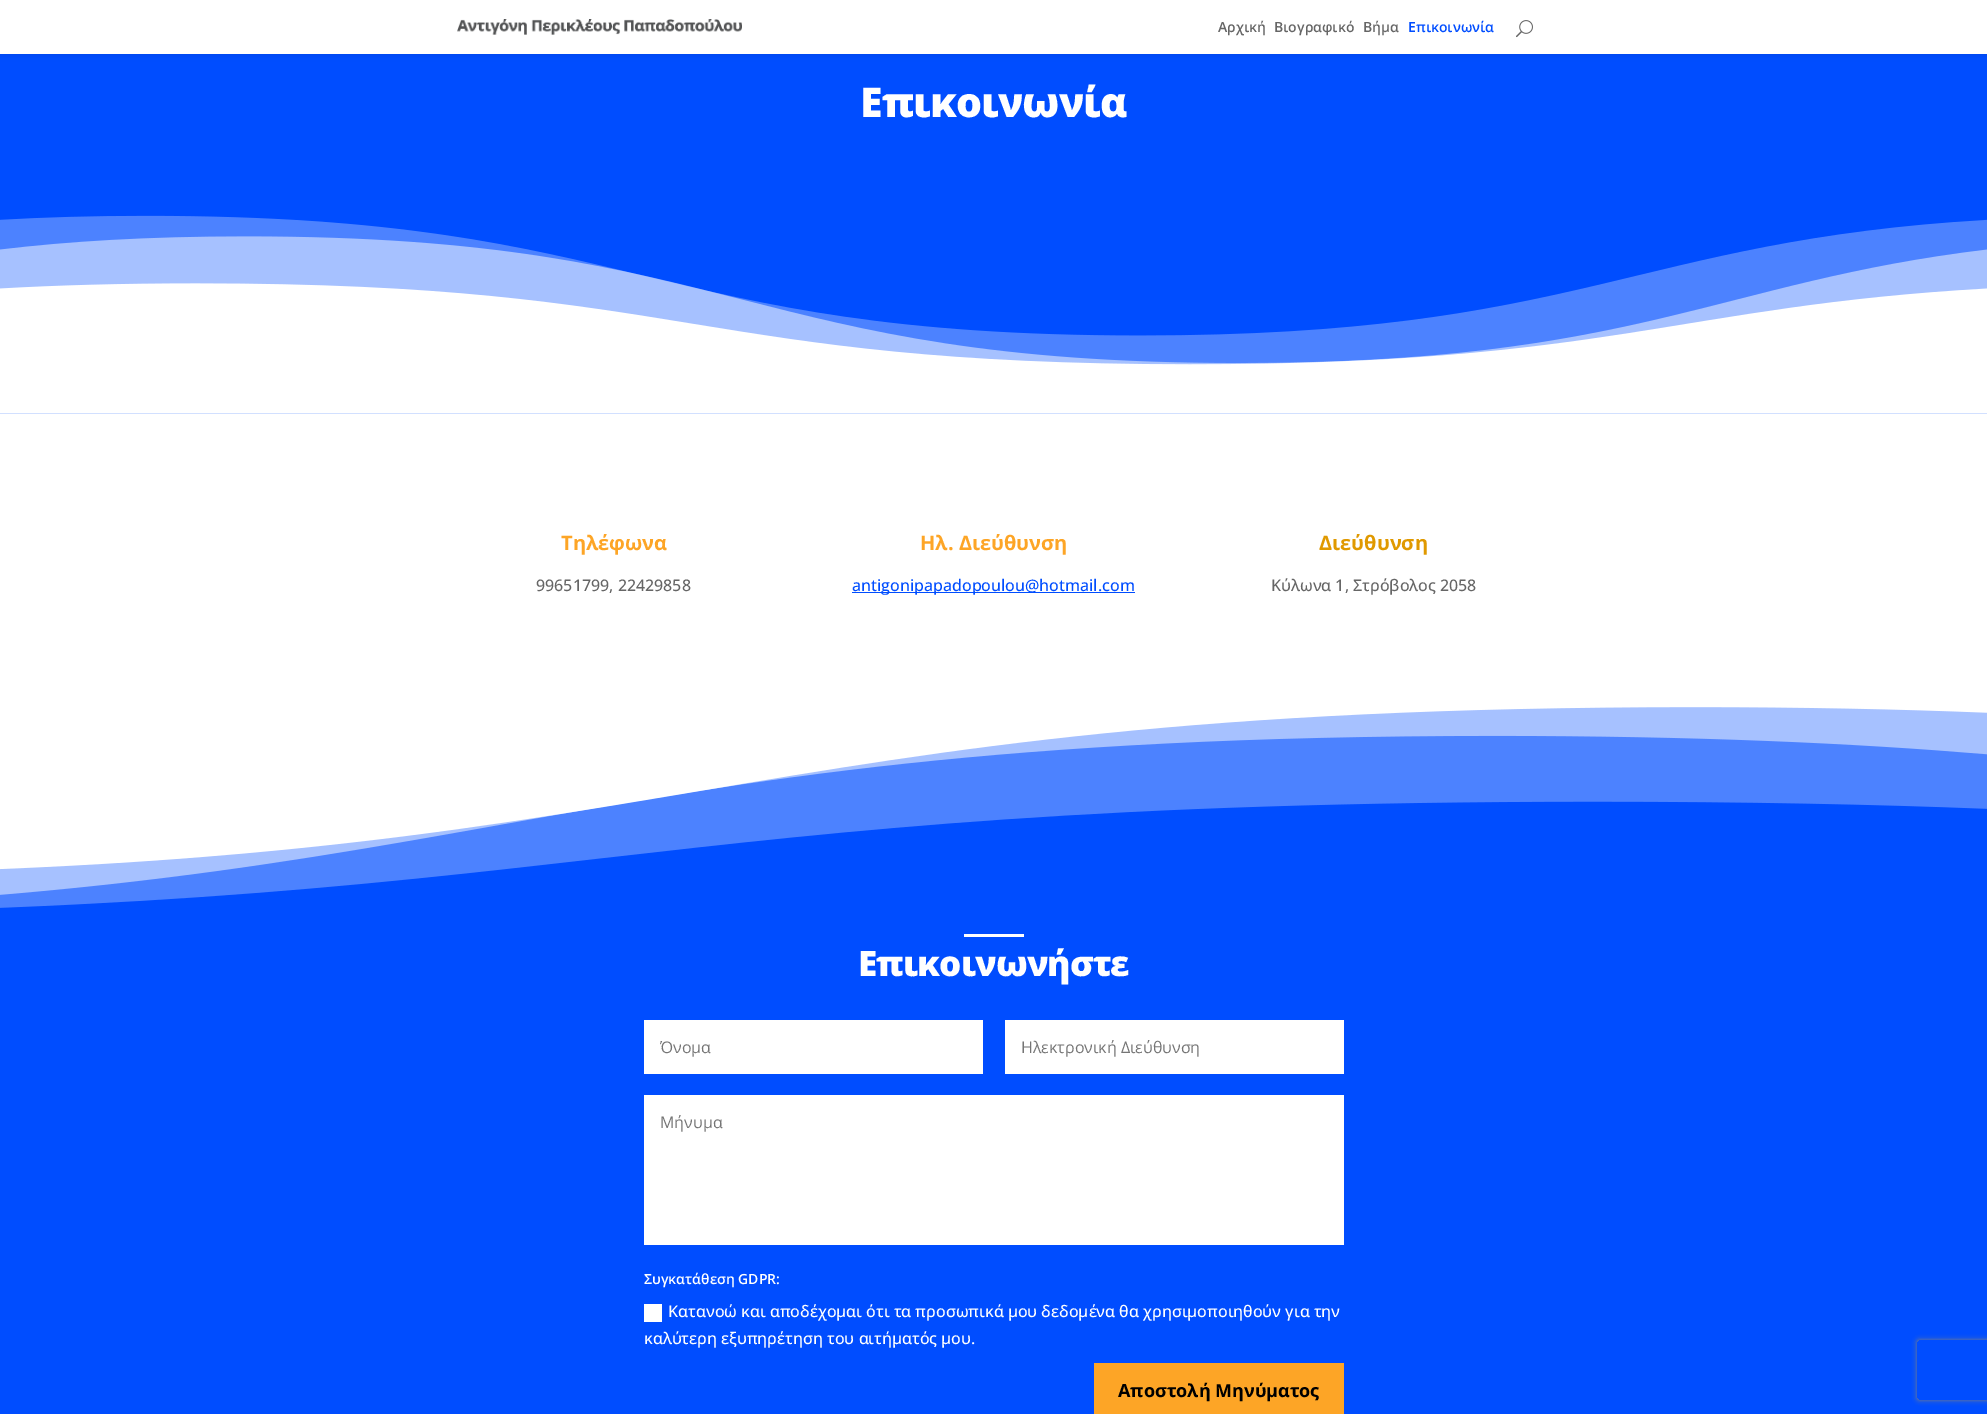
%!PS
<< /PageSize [1987 1414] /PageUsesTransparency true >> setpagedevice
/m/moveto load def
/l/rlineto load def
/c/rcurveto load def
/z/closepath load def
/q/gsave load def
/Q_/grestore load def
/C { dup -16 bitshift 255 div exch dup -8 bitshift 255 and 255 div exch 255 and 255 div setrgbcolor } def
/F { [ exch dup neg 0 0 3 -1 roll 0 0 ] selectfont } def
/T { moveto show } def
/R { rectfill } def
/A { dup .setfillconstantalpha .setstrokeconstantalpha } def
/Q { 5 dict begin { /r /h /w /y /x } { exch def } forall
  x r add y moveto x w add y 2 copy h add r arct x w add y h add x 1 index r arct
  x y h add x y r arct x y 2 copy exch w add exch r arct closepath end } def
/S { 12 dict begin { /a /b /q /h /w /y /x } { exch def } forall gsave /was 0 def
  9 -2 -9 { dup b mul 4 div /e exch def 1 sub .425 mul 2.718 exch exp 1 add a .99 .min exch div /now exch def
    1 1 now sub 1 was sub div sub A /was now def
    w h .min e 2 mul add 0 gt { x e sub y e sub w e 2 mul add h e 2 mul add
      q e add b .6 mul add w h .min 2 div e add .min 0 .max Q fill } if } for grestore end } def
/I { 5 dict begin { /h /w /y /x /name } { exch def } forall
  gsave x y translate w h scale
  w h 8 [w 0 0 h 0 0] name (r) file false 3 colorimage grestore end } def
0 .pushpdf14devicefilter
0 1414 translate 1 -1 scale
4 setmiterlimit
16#FFFFFF C
0 0 1987 1414 R
16#004DFF C
0 54 1987 360 R
16#000000 C
0 0 1987 54 0 3.5 .1 S
16#FFFFFF C
0 0 1987 54 R
(1.rgb) 457 19 285 16 I
/OpenSans-SemiBold 14 F
16#666666 C
(Αρχική) 1218 32 T
(Βιογραφικό) 1274 32 T
(Βήμα) 1363 32 T
16#004DFF C
(Επικοινωνία) 1408 32 T
(2.rgb) 1516 20 17 18 I
/OpenSans-ExtraBold 41 F
16#FFFFFF C
860 117 m -1 0 (Επικοινωνία) ashow
(3.rgb) 0 215 1987 199 I
/OpenSans-Bold 20 F
16#FDA526 C
(Τηλέφωνα) 561 550 T
/OpenSans-Medium 16 F
16#666666 C
(99651799, 22429858) 536 591 T
/OpenSans-Bold 20 F
16#FDA526 C
(Ηλ. Διεύθυνση) 920 550 T
16#004DFF C
852 592 283 1 R
/OpenSans-Medium 16 F
(antigonipapadopoulou@hotmail.com) 852 591 T
/OpenSans-Bold 20 F
16#E09900 C
(Διεύθυνση) 1319 550 T
/OpenSans-Medium 16 F
16#666666 C
(Κύλωνα 1, Στρόβολος 2058) 1271 591 T
16#004DFF C
0 707 1987 707 R
(4.rgb) 0 706 1987 202 I
16#FFFFFF C
964 934 60 3 R
/OpenSans-ExtraBold 35 F
858 976 m -1 0 (Επικοινωνήστε) ashow
644 1020 339 54 R
/OpenSans-Regular 16 F
16#757575 C
(Όνομα) 660 1053 T
16#FFFFFF C
1005 1020 339 54 R
16#757575 C
(Ηλεκτρονική Διεύθυνση) 1021 1053 T
16#FFFFFF C
644 1095 700 150 R
16#757575 C
(Μήνυμα) 660 1128 T
/OpenSans-SemiBold 14 F
16#FFFFFF C
(Συγκατάθεση GDPR:) 644 1284 T
644 1304 18 18 R
/OpenSans-Medium 16 F
(Κατανοώ και αποδέχομαι ότι τα προσωπικά μου δεδομένα θα χρησιμοποιηθούν για την) 668 1317 T
(καλύτερη εξυπηρέτηση του αιτήματός μου.) 644 1344 T
16#FDA526 C
1094 1363 250 51 R
/OpenSans-Bold 18 F
16#000000 C
(Αποστολή Μηνύματος) 1118 1397 T
q
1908 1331 m 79 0 l 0 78 l -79 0 l z 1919 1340 m 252 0 l 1 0 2 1 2 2 c 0 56 l 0 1 -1 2 -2 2 c -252 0 l -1 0 -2 -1 -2 -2 c 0 -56 l 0 -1 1 -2 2 -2 c z eoclip newpath
16#808080 C
1917 1340 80 60 2 2.5 1 S
Q_
.poppdf14devicefilter showpage
